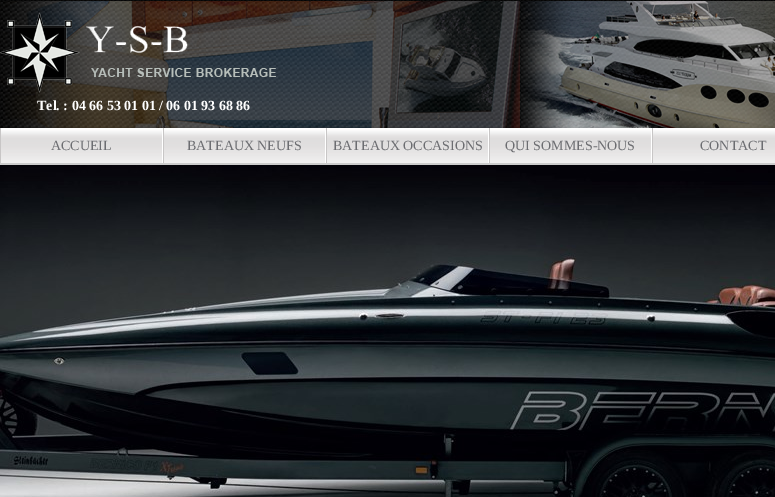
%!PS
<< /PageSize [775 497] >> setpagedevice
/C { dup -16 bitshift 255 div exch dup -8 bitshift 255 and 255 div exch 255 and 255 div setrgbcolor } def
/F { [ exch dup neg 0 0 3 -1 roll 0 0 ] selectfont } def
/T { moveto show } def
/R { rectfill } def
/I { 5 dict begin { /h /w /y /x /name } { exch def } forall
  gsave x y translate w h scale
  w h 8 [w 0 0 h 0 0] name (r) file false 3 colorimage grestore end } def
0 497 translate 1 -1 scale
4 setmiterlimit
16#FFFFFF C
0 0 775 497 R
(1.rgb) 0 0 775 1 I
(2.rgb) 0 1 775 127 I
(3.rgb) 0 12 276 81 I
/LiberationSerif-Bold 14 F
(Tel. : 04 66 53 01 01 / 06 01 93 68 86) 37 110 T
(4.rgb) 1 130 161 33 I
16#C8C6C6 C
0 128 1 35 R
/LiberationSerif-Regular 14 F
16#6C6D71 C
(ACCUEIL) 51 150 T
(4.rgb) 164 130 161 33 I
16#C8C6C6 C
163 128 1 35 R
16#6C6D71 C
(BATEAUX NEUFS) 187 150 T
(4.rgb) 327 130 161 33 I
16#C8C6C6 C
326 128 1 35 R
16#6C6D71 C
(BATEAUX OCCASIONS) 333 150 T
(4.rgb) 490 130 161 33 I
16#C8C6C6 C
489 128 1 35 R
16#6C6D71 C
(QUI SOMMES-NOUS) 505 150 T
(5.rgb) 653 130 122 33 I
16#C8C6C6 C
652 128 1 35 R
16#6C6D71 C
(CONTACT) 700 150 T
16#CCCCCC C
0 163 775 2 R
(6.rgb) 0 165 775 332 I
showpage
